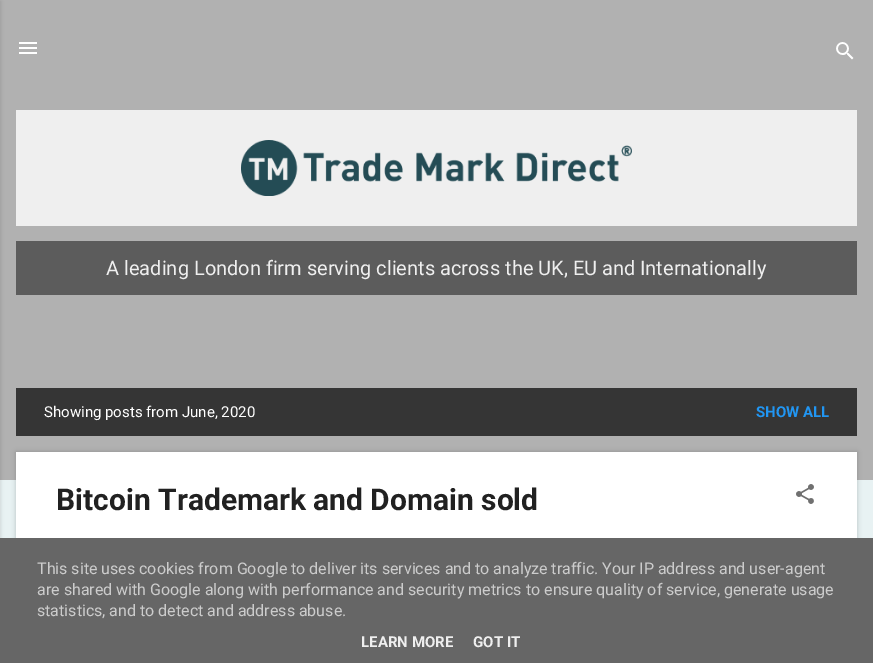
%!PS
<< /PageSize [873 663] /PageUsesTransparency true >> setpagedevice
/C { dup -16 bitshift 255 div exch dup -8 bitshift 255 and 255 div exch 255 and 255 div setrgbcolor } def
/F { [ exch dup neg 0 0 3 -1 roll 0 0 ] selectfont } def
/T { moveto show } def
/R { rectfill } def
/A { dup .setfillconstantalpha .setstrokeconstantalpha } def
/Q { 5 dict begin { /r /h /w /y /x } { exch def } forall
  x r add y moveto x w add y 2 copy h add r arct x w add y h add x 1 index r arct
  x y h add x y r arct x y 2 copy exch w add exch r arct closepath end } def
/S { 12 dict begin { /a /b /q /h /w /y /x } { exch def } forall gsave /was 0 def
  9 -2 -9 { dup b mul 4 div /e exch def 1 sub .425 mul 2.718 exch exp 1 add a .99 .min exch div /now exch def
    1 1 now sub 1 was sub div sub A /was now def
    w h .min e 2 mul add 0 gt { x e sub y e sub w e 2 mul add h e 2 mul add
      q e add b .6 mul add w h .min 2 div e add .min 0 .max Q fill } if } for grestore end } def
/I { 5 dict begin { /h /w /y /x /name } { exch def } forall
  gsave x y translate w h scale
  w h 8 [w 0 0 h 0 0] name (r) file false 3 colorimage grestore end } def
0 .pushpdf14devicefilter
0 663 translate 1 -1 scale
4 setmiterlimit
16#E8F2F3 C
0 0 873 663 R
16#B1B1B1 C
0 0 873 480 R
16#000000 C
-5 1 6 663 0 1.5 .1 S
(1.rgb) 19 42 18 12 I
(2.rgb) 836 42 18 18 I
16#EFEFEF C
16 110 841 116 R
(3.rgb) 241 140 391 56 I
16#5C5C5C C
16 241 841 54 R
/Roboto-Regular 20 F
16#EFEFEF C
(A leading London firm serving clients across the UK, EU and Internationally) 106 275 T
16#353535 C
16 388 841 48 R
/Roboto-Regular 15 F
16#FFFFFF C
(Showing posts from June, 2020) 44 417 T
/Roboto-Bold 15 F
16#2196F3 C
(SHOW ALL) 756 417 T
16#000000 C
16 452 841 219 0 2.5 .2 S
16#FFFFFF C
16 452 841 86 R
/Roboto-Bold 30 F
16#212121 C
(Bitcoin Trademark and Domain sold) 56 510 T
(4.rgb) 796 484 18 20 I
16#666666 C
0 538 873 125 R
/Roboto-Regular 16 F
16#CCCCCC C
(This site uses cookies from Google to deliver its services and to analyze traffic. Your IP address and user-agent) 37 574 T
(are shared with Google along with performance and security metrics to ensure quality of service, generate usage) 37 595 T
(statistics, and to detect and address abuse.) 37 616 T
/Roboto-Bold 15 F
16#EFEFEF C
(LEARN MORE) 361 647 T
(GOT IT) 473 647 T
.poppdf14devicefilter showpage
